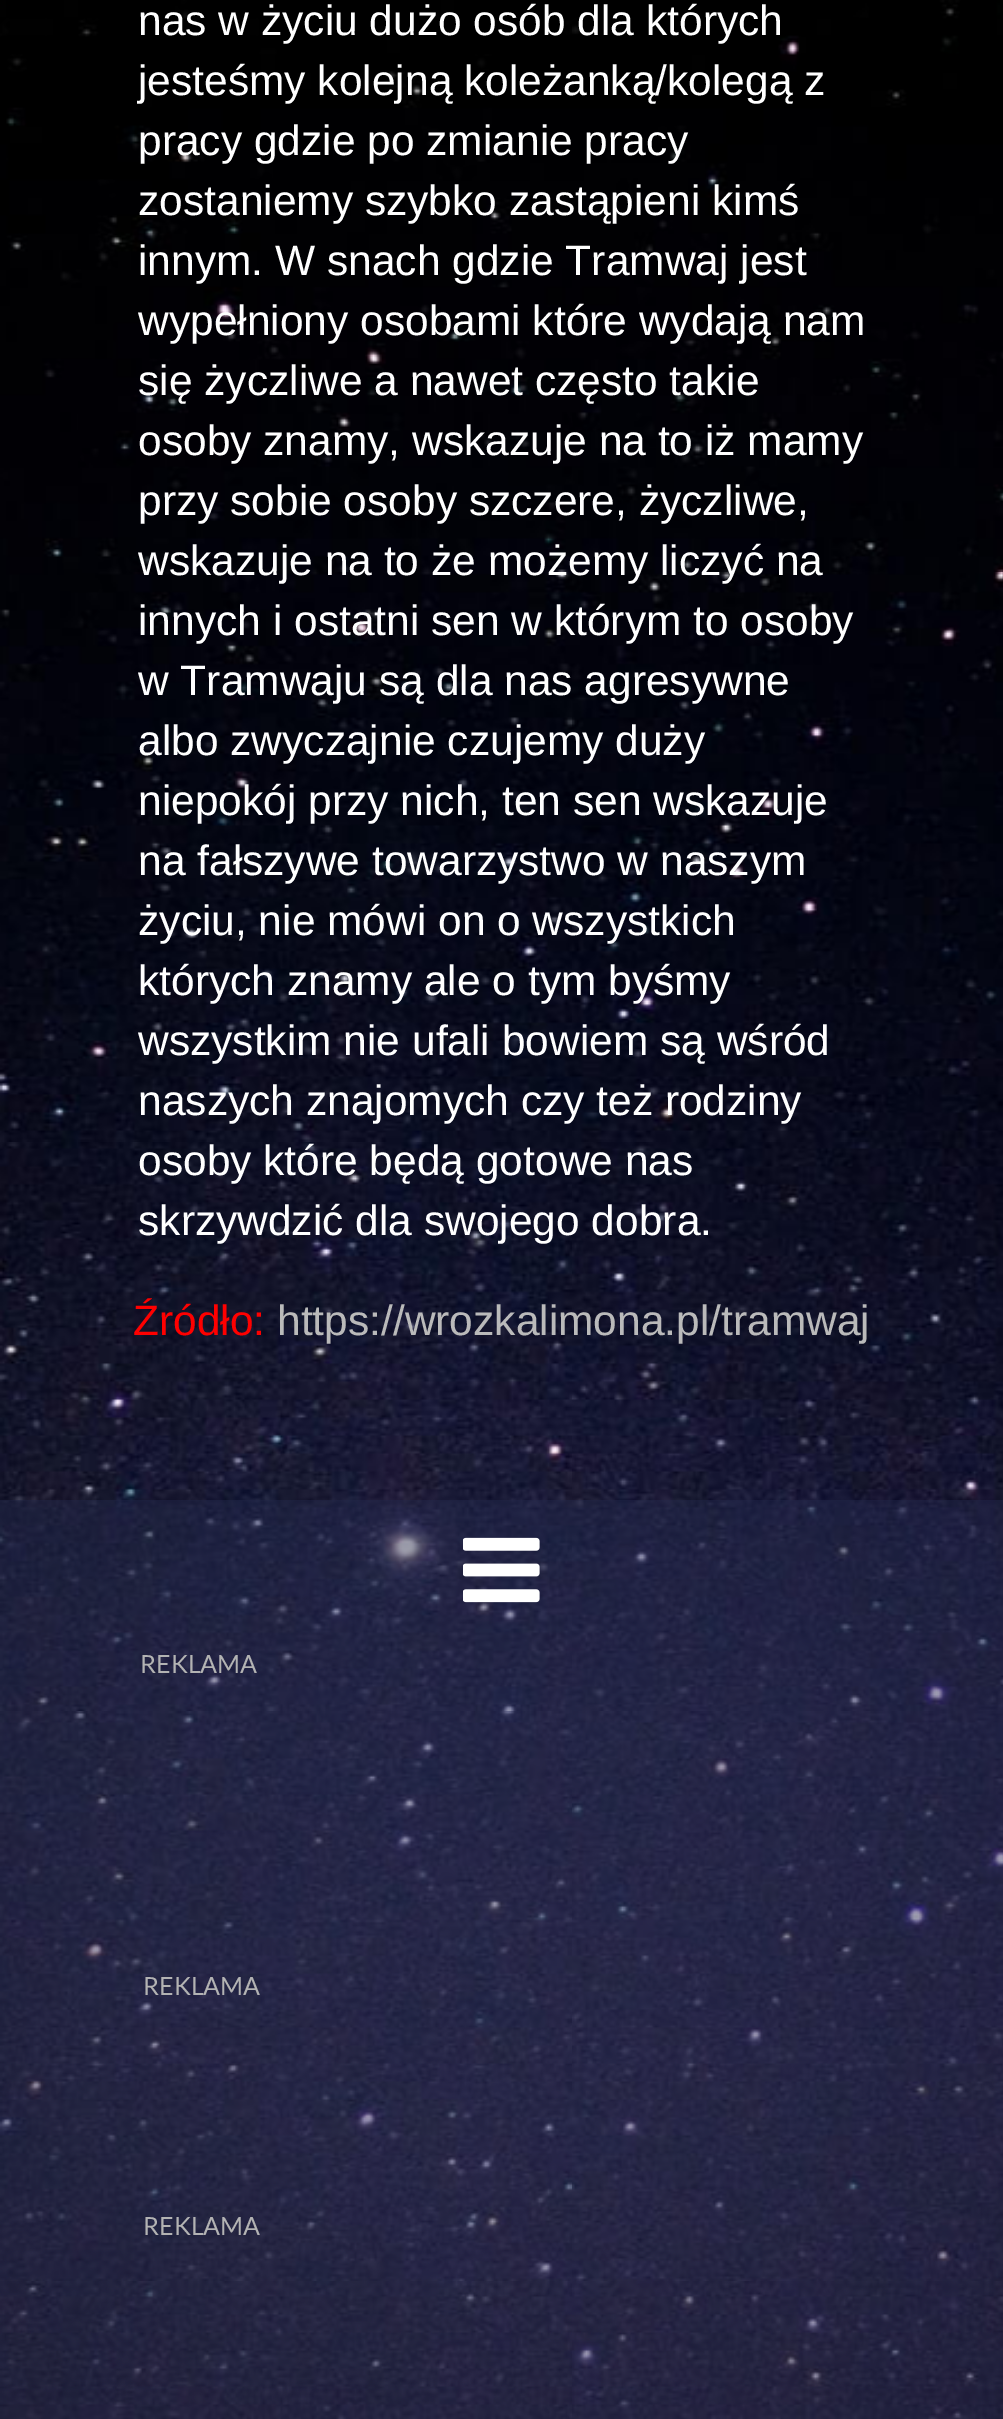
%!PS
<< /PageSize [1003 2419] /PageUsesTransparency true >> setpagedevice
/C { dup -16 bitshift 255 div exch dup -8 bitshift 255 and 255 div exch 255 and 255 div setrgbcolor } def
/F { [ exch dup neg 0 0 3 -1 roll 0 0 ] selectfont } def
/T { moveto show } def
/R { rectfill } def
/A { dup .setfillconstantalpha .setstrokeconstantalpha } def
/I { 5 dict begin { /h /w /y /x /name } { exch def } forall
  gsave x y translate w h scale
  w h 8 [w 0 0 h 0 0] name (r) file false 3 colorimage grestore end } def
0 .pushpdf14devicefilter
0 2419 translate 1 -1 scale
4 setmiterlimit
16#FFFFFF C
0 0 1003 2419 R
(1.rgb) 0 0 1003 2419 I
/LiberationSans-Regular 42.5 F
(nas w życiu dużo osób dla których) 138 35 T
(jesteśmy kolejną koleżanką/kolegą z) 138 95 T
(pracy gdzie po zmianie pracy) 138 155 T
(zostaniemy szybko zastąpieni kimś) 138 215 T
(innym. W snach gdzie Tramwaj jest) 138 275 T
(wypełniony osobami które wydają nam) 138 335 T
(się życzliwe a nawet często takie) 138 395 T
(osoby znamy, wskazuje na to iż mamy) 138 455 T
(przy sobie osoby szczere, życzliwe,) 138 515 T
(wskazuje na to że możemy liczyć na) 138 575 T
(innych i ostatni sen w którym to osoby) 138 635 T
(w Tramwaju są dla nas agresywne) 138 695 T
(albo zwyczajnie czujemy duży) 138 755 T
(niepokój przy nich, ten sen wskazuje) 138 815 T
(na fałszywe towarzystwo w naszym) 138 875 T
(życiu, nie mówi on o wszystkich) 138 935 T
(których znamy ale o tym byśmy) 138 995 T
(wszystkim nie ufali bowiem są wśród) 138 1055 T
(naszych znajomych czy też rodziny) 138 1115 T
(osoby które będą gotowe nas) 138 1175 T
(skrzywdzić dla swojego dobra.) 138 1235 T
16#FF0000 C
(Źródło:) 133 1335 T
16#BABABA C
(https://wrozkalimona.pl/tramwaj) 277 1335 T
0.45 A
16#23294D C
0 1500 1003 919 R
1 A
(2.rgb) 463 1537 77 66 I
/Lato-Regular 25 F
16#B3B3B3 C
(REKLAMA) 140 1673 T
(REKLAMA) 143 1995 T
(REKLAMA) 143 2235 T
.poppdf14devicefilter showpage
